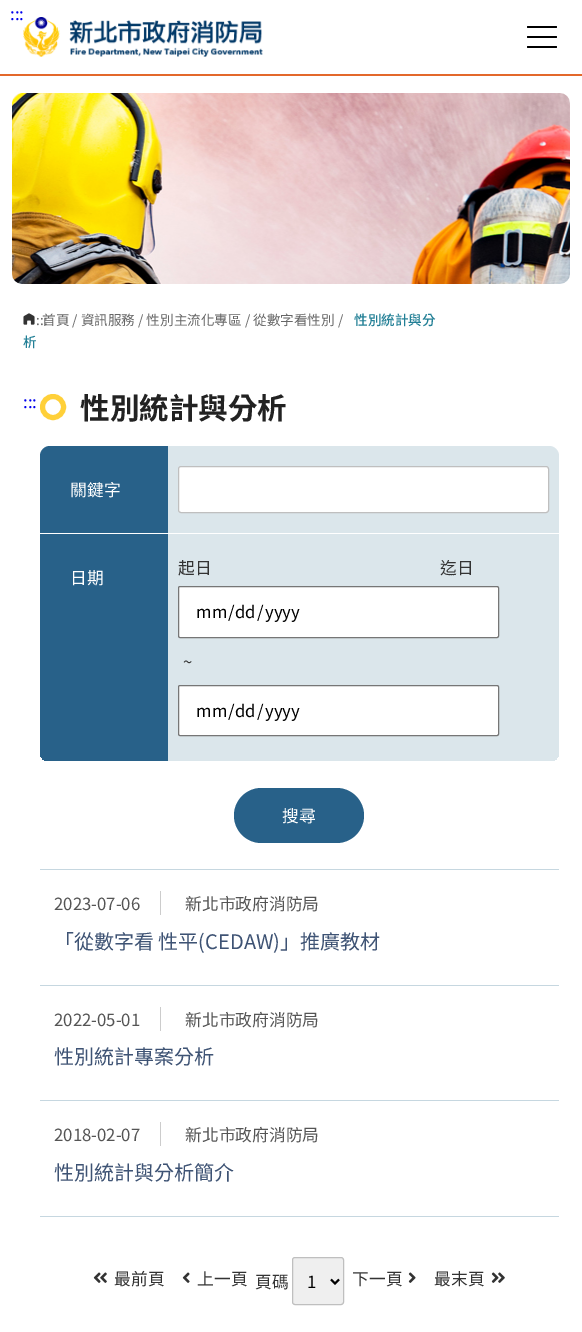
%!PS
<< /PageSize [582 1332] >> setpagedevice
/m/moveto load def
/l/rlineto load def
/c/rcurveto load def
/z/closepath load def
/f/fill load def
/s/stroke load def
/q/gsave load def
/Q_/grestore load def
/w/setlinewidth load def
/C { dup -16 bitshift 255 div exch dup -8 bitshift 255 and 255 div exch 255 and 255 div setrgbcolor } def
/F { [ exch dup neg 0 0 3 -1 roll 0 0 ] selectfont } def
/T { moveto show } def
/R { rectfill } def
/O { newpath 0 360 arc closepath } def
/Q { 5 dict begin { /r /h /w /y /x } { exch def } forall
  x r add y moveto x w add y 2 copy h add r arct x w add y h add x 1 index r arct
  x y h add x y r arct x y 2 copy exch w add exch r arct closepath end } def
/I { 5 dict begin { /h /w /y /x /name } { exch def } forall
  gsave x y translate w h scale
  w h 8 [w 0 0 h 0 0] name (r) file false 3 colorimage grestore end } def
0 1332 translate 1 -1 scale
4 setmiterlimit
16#FFFFFF C
0 0 582 1332 R
16#E3682B C
0 74 582 2 R
/NotoSansTC-Regular 16.75 F
16#0000EE C
(:::) 10 20 T
(1.rgb) 23 17 240 40 I
16#000000 C
527 26 30 2 1 Q f
527 36 30 2 1 Q f
527 46 30 2 1 Q f
(2.rgb) 12 93 558 191 I
(3.rgb) 23 313 12 12 I
/NotoSansTC-Regular 13.6 F
16#666666 C
(首頁 / 資訊服務 / 性別主流化專區 / 從數字看性別 /) 42 325 T
/NotoSansTC-Medium 13.6 F
16#227F96 C
(性別統計與分) 354 325 T
(析) 23 347 T
/NotoSansTC-Regular 13.6 F
16#666666 C
(:::) 36 325 T
/NotoSansTC-Regular 16.75 F
16#0000EE C
(:::) 23 408 T
16#FFD039 C
5 w
53 407 10.5 O s
/NotoSansTC-Bold 29.5 F
16#222222 C
(性別統計與分析) 80 419 T
16#286189 C
50 446 m 118 0 l 0 87 l -128 0 l 0 -77 l 0 -5.5 4.5 -10 10 -10 c z f
/NotoSansTC-Regular 16.75 F
16#FFFFFF C
(關鍵字) 70 496 T
16#DBE6EB C
168 446 m 381 0 l 5.5 0 10 4.5 10 10 c 0 77 l -391 0 l z f
16#FFFFFF C
178.5 466.5 370 46 2.5 Q q f Q_
16#BFBFBF C
1 w
s
q
40 446 519 316 10 Q clip newpath
16#286189 C
40 534 128 227 R
Q_
16#FFFFFF C
(日期) 70 584 T
q
40 446 519 316 10 Q clip newpath
16#DBE6EB C
168 534 391 227 R
Q_
16#333333 C
(起日) 178 574 T
(迄日) 440 574 T
16#FFFFFF C
178.5 586.5 320 51 1.5 Q q f Q_
16#767676 C
s
16#000000 C
(mm) 196 618 T
(/) 228 618 T
(dd) 235 618 T
(/) 257 618 T
(yyyy) 265 618 T
16#333333 C
(~) 183 668 T
16#FFFFFF C
178.5 685.5 320 50 1.5 Q q f Q_
16#767676 C
s
16#000000 C
(mm) 196 717 T
(/) 228 717 T
(dd) 235 717 T
(/) 257 717 T
(yyyy) 265 717 T
16#286189 C
234 788 130 55 27.5 Q f
16#FFFFFF C
(搜尋) 282 822 T
16#C6D7E0 C
40 869 519 1 R
40 985 519 1 R
16#555555 C
(2023-07-06) 54 910 T
16#CCCCCC C
160 891 1 24 R
16#555555 C
(新北市政府消防局) 185 910 T
/NotoSansTC-Regular 20 F
16#3E5374 C
(「從數字看 性平\(CEDAW\)」推廣教材) 54 949 T
16#C6D7E0 C
40 1100 519 1 R
/NotoSansTC-Regular 16.75 F
16#555555 C
(2022-05-01) 54 1026 T
16#CCCCCC C
160 1007 1 24 R
16#555555 C
(新北市政府消防局) 185 1026 T
/NotoSansTC-Regular 20 F
16#3E5374 C
(性別統計專案分析) 54 1064 T
16#C6D7E0 C
40 1216 519 1 R
/NotoSansTC-Regular 16.75 F
16#555555 C
(2018-02-07) 54 1141 T
16#CCCCCC C
160 1122 1 24 R
16#555555 C
(新北市政府消防局) 185 1141 T
/NotoSansTC-Regular 20 F
16#3E5374 C
(性別統計與分析簡介) 54 1180 T
(4.rgb) 93 1272 14 11 I
/NotoSansTC-Regular 16.75 F
16#333333 C
(最前頁) 114 1285 T
(5.rgb) 182 1272 8 11 I
(上一頁) 197 1285 T
(頁碼) 255 1288 T
16#EFEFEF C
292.5 1257.5 51 47 2.5 Q q f Q_
16#BFBFBF C
s
16#000000 C
2 w
331 1279.5 m 4 4 l 4 -4 l s
(1) 307 1288 T
16#333333 C
(下一頁) 352 1285 T
(6.rgb) 408 1272 8 11 I
(最末頁) 434 1285 T
(7.rgb) 491 1272 14 11 I
showpage
